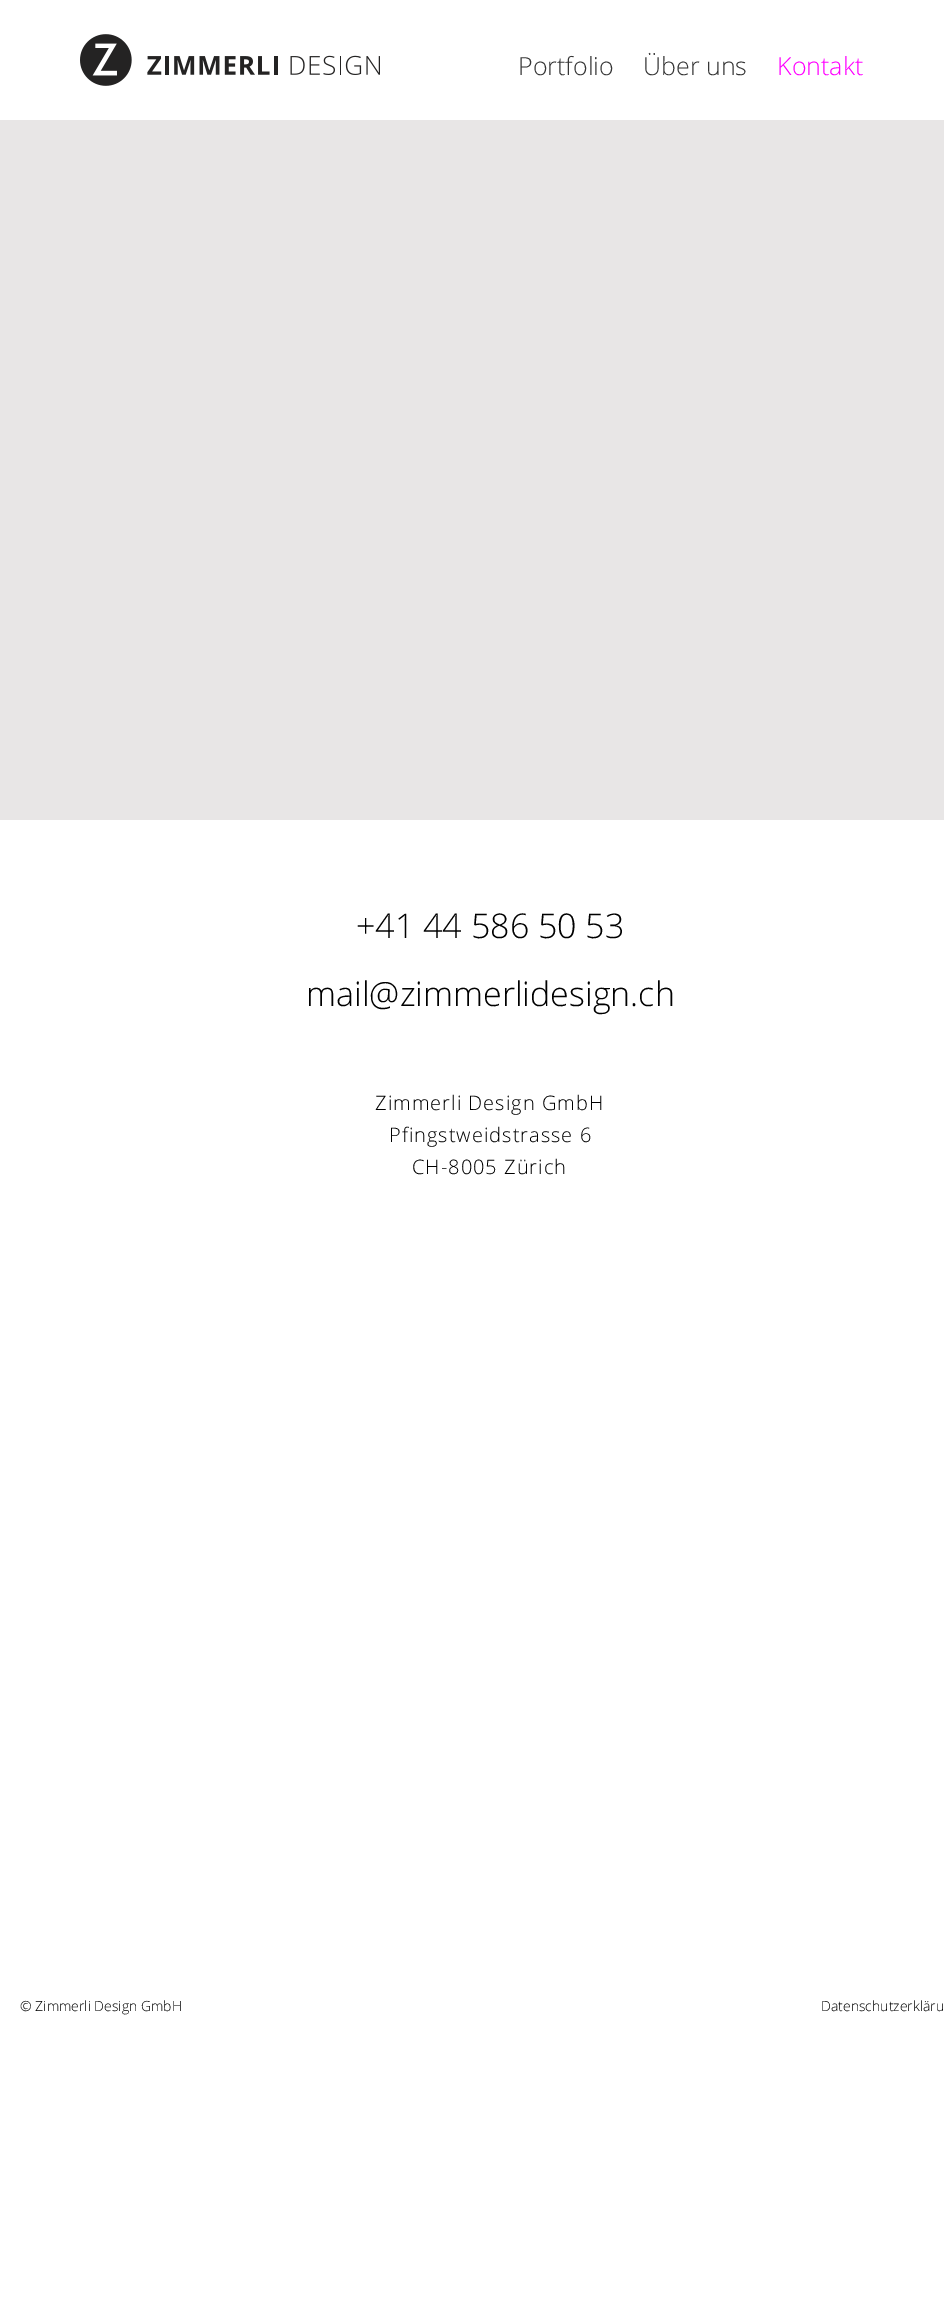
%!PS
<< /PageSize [944 2315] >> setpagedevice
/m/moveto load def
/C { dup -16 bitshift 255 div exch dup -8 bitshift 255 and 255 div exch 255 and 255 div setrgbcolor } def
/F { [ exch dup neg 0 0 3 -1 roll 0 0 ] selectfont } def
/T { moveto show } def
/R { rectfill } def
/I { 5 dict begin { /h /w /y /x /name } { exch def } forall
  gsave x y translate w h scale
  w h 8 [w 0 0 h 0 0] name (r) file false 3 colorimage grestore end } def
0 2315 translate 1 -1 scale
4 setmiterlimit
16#FFFFFF C
0 0 944 2315 R
(1.rgb) 80 34 300 52 I
/OpenSans-Light 25 F
16#363636 C
(Portfolio) 518 75 T
(Über uns) 643 75 T
16#FF00FF C
(Kontakt) 777 75 T
16#E8E6E6 C
0 120 944 700 R
/OpenSans-Light 34 F
16#000000 C
(+41 44 586 50 53) 356 938 T
(mail@zimmerlidesign.ch) 306 1006 T
/OpenSans-Light 20 F
375 1110 m 1 0 (Zimmerli Design GmbH) ashow
389 1142 m 1 0 (Pfingstweidstrasse 6) ashow
412 1174 m 1 0 (CH-8005 Zürich) ashow
/OpenSans-Light 14 F
(© Zimmerli Design GmbH) 20 2011 T
(Datenschutzerkläru) 821 2011 T
showpage
